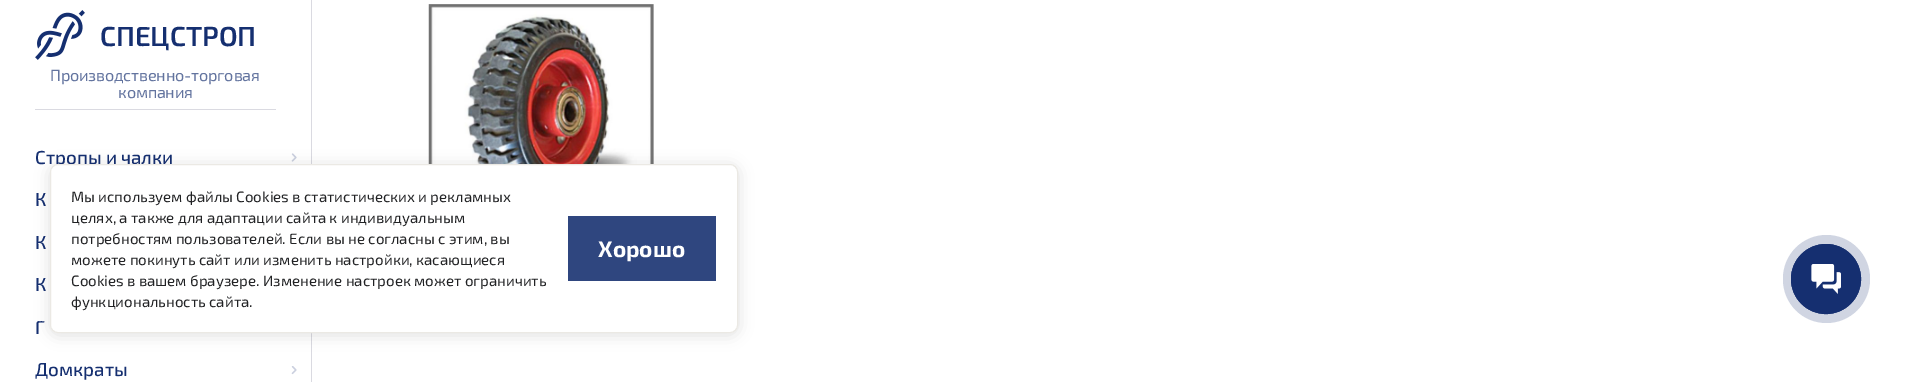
%!PS
<< /PageSize [1930 382] /PageUsesTransparency true >> setpagedevice
/m/moveto load def
/f/fill load def
/s/stroke load def
/q/gsave load def
/Q_/grestore load def
/C { dup -16 bitshift 255 div exch dup -8 bitshift 255 and 255 div exch 255 and 255 div setrgbcolor } def
/F { [ exch dup neg 0 0 3 -1 roll 0 0 ] selectfont } def
/T { moveto show } def
/R { rectfill } def
/A { dup .setfillconstantalpha .setstrokeconstantalpha } def
/O { newpath 0 360 arc closepath } def
/Q { 5 dict begin { /r /h /w /y /x } { exch def } forall
  x r add y moveto x w add y 2 copy h add r arct x w add y h add x 1 index r arct
  x y h add x y r arct x y 2 copy exch w add exch r arct closepath end } def
/S { 12 dict begin { /a /b /q /h /w /y /x } { exch def } forall gsave /was 0 def
  9 -2 -9 { dup b mul 4 div /e exch def 1 sub .425 mul 2.718 exch exp 1 add a .99 .min exch div /now exch def
    1 1 now sub 1 was sub div sub A /was now def
    w h .min e 2 mul add 0 gt { x e sub y e sub w e 2 mul add h e 2 mul add
      q e add b .6 mul add w h .min 2 div e add .min 0 .max Q fill } if } for grestore end } def
/I { 5 dict begin { /h /w /y /x /name } { exch def } forall
  gsave x y translate w h scale
  w h 8 [w 0 0 h 0 0] name (r) file false 3 colorimage grestore end } def
0 .pushpdf14devicefilter
0 382 translate 1 -1 scale
4 setmiterlimit
16#FFFFFF C
0 0 1930 382 R
16#DADAE1 C
311 0 1 382 R
(1.rgb) 35 10 50 50 I
/Exo2-SemiBold 27.5 F
16#152F70 C
(СПЕЦСТРОП) 100 46 T
/Exo2-Regular 16.25 F
16#63749F C
50 81 m -.2 0 (Производственно-торговая) ashow
118 98 m -.2 0 (компания) ashow
16#DADAE1 C
35 109 241 1 R
/Exo2-Medium 18.75 F
16#152F70 C
(Стропы и чалки) 35 164 T
(2.rgb) 291 153 6 9 I
(К) 35 206 T
(К) 35 249 T
(К) 35 291 T
(Г) 35 334 T
(Домкраты) 35 376 T
(3.rgb) 291 366 6 9 I
(4.rgb) 428 4 226 160 I
16#000000 C
50 166 688 169 8 7.5 .12 S
16#FFFFFF C
50.5 164.5 687 168 7.5 Q q f Q_
16#EBE9E4 C
s
/Exo2-Regular 15 F
16#212224 C
(Мы используем файлы Cookies в статистических и рекламных) 71 202 T
(целях, а также для адаптации сайта к индивидуальным) 71 223 T
(потребностям пользователей. Если вы не согласны с этим, вы) 71 244 T
(можете покинуть сайт или изменить настройки, касающиеся) 71 265 T
(Cookies в вашем браузере. Изменение настроек может ограничить) 71 286 T
(функциональность сайта.) 71 307 T
16#2F467F C
568 216 148 65 R
/Exo2-Bold 22.5 F
16#FFFFFF C
(Хорошо) 598 257 T
16#D0D5E2 C
1783 235 87 88 43.5 Q f
16#152F70 C
1826 279 34.5 O s
1826 279 35 O f
(5.rgb) 1811 264 30 30 I
.poppdf14devicefilter showpage
